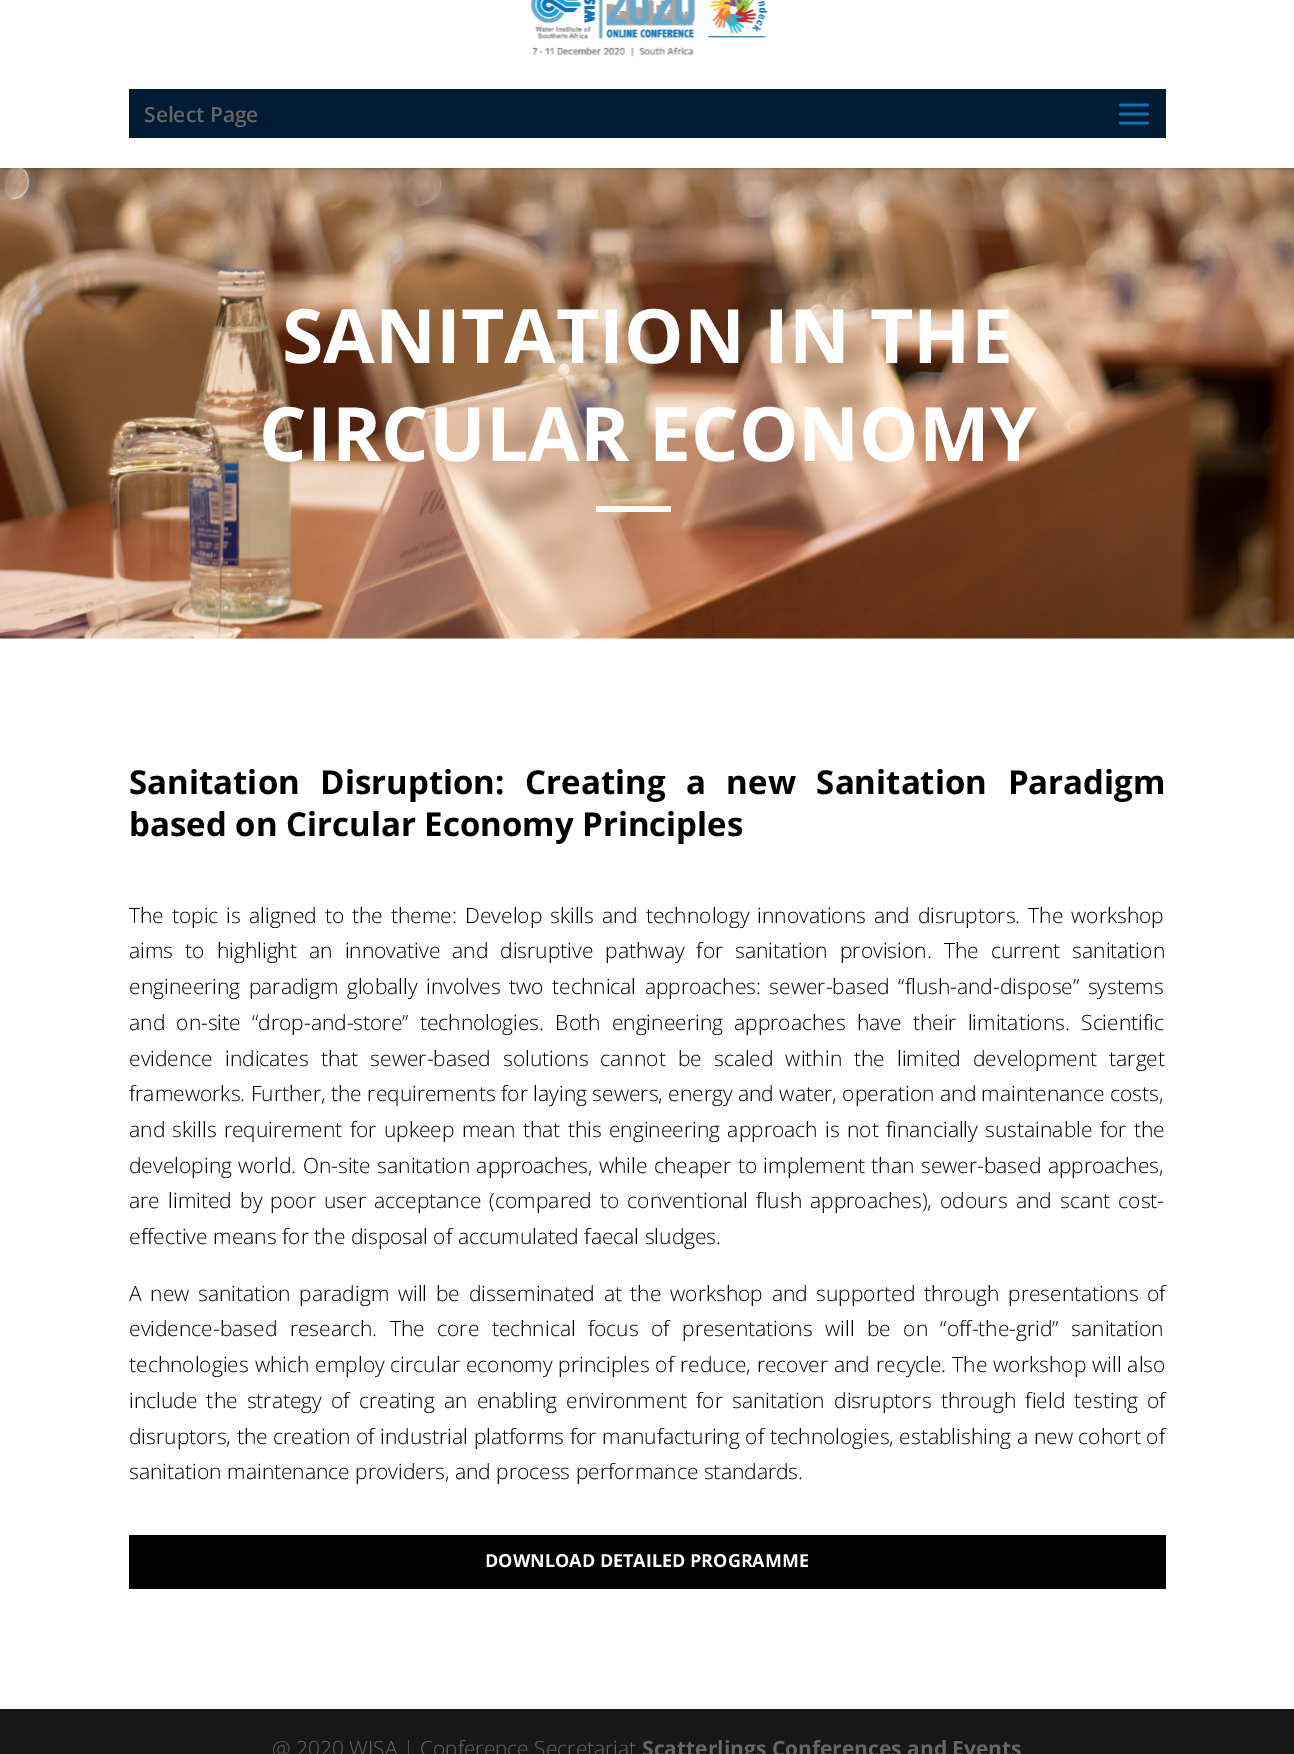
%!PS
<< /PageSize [1294 1754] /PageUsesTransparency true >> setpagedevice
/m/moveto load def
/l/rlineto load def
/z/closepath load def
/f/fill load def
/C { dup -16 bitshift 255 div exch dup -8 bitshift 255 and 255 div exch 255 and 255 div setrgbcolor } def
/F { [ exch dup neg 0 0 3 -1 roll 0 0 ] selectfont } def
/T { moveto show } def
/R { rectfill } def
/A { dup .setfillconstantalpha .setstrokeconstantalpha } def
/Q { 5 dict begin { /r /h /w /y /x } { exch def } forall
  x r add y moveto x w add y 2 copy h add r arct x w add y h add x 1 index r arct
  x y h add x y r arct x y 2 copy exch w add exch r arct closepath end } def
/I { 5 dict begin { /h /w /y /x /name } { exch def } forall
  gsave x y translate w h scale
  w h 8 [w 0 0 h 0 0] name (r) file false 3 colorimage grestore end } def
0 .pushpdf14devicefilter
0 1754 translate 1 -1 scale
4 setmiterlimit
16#FFFFFF C
0 0 1294 1754 R
(3.rgb) 0 168 1294 471 I
0.1 A
16#000000 C
0 168 m 0 2 l 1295 0 l 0 -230 l -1 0 l 0 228 l z f
1 A
(1.rgb) 530 0 238 57 I
16#001D38 C
129 89 1037 49 R
16#001C35 C
129 89 1037 49 8 Q f
/OpenSans-SemiBold 21 F
16#666666 C
(Select Page) 144 122 T
(2.rgb) 1119 103 30 22 I
/OpenSans-Bold 75 F
16#FFFFFF C
(SANITATION IN THE) 282 363 T
(CIRCULAR ECONOMY) 259 461 T
596 506 75 6 R
/OpenSans-Bold 33 F
16#000000 C
129 794 m 12 0 32 (Sanitation Disruption: Creating a new Sanitation Paradigm) widthshow
(based on Circular Economy Principles) 129 836 T
/OpenSans-Light 21 F
129 923 m 2.5 0 32 (The topic is aligned to the theme: Develop skills and technology innovations and disruptors. The workshop) widthshow
129 958 m 6.6 0 32 (aims to highlight an innovative and disruptive pathway for sanitation provision. The current sanitation) widthshow
129 994 m 3 0 32 (engineering paradigm globally involves two technical approaches: sewer-based “flush-and-dispose” systems) widthshow
129 1030 m 5.75 0 32 (and on-site “drop-and-store” technologies. Both engineering approaches have their limitations. Scientific) widthshow
129 1066 m 6.6 0 32 (evidence indicates that sewer-based solutions cannot be scaled within the limited development target) widthshow
(frameworks. Further, the requirements for laying sewers, energy and water, operation and maintenance costs,) 129 1101 T
129 1137 m 1.9 0 32 (and skills requirement for upkeep mean that this engineering approach is not financially sustainable for the) widthshow
129 1173 m 1 0 32 (developing world. On-site sanitation approaches, while cheaper to implement than sewer-based approaches,) widthshow
129 1208 m 2.75 0 32 (are limited by poor user acceptance \(compared to conventional flush approaches\), odours and scant cost-) widthshow
(effective means for the disposal of accumulated faecal sludges.) 129 1244 T
129 1301 m 3.25 0 32 (A new sanitation paradigm will be disseminated at the workshop and supported through presentations of) widthshow
129 1336 m 7 0 32 (evidence-based research. The core technical focus of presentations will be on “off-the-grid” sanitation) widthshow
129 1372 m .5 0 32 (technologies which employ circular economy principles of reduce, recover and recycle. The workshop will also) widthshow
129 1408 m 3.75 0 32 (include the strategy of creating an enabling environment for sanitation disruptors through field testing of) widthshow
129 1444 m .2 0 32 (disruptors, the creation of industrial platforms for manufacturing of technologies, establishing a new cohort of) widthshow
(sanitation maintenance providers, and process performance standards.) 129 1479 T
129 1535 1037 54 R
/OpenSans-Bold 18 F
16#FFFFFF C
(DOWNLOAD DETAILED PROGRAMME) 485 1567 T
16#171717 C
0 1709 1294 45 R
/OpenSans-Light 21 F
16#666666 C
(@ 2020 WISA | Conference Secretariat) 272 1756 T
/OpenSans-Bold 21 F
(Scatterlings Conferences and Events) 642 1756 T
.poppdf14devicefilter showpage
